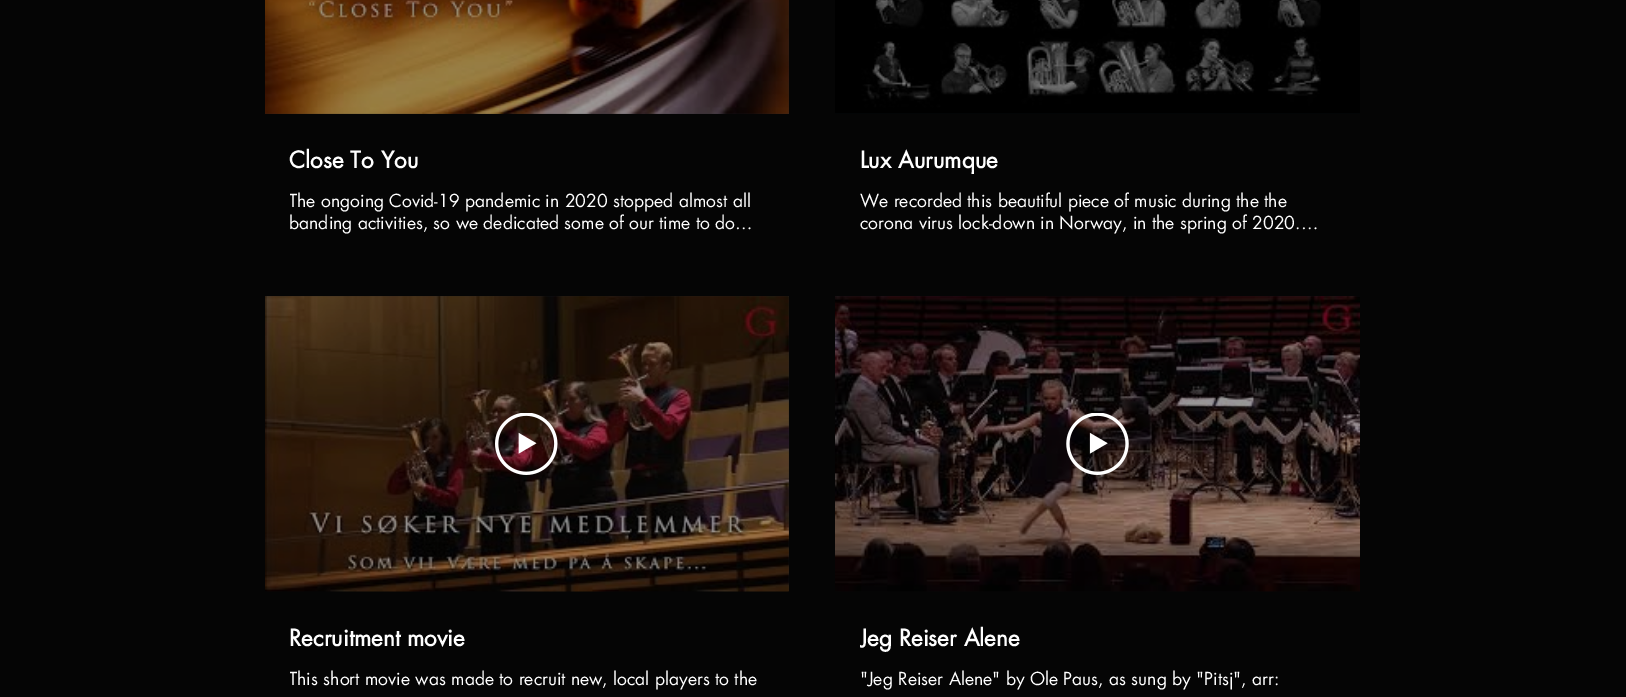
%!PS
<< /PageSize [1626 697] >> setpagedevice
/q/gsave load def
/Q_/grestore load def
/C { dup -16 bitshift 255 div exch dup -8 bitshift 255 and 255 div exch 255 and 255 div setrgbcolor } def
/F { [ exch dup neg 0 0 3 -1 roll 0 0 ] selectfont } def
/T { moveto show } def
/R { rectfill } def
/I { 5 dict begin { /h /w /y /x /name } { exch def } forall
  gsave x y translate w h scale
  w h 8 [w 0 0 h 0 0] name (r) file false 3 colorimage grestore end } def
0 697 translate 1 -1 scale
4 setmiterlimit
16#050505 C
0 0 1626 697 R
(1.rgb) 265 0 524 114 I
(2.rgb) 265 0 524 114 I
/futura-Bold 22.5 F
16#FFFFFF C
(Close To You) 289 168 T
q
290 189 474 45 rectclip
/futura-Regular 17.5 F
(The ongoing Covid-19 pandemic in 2020 stopped almost all) 289 207 T
Q_
/futura-Regular 17.5 F
(banding activities, so we dedicated some of our time to do…) 289 229 T
(3.rgb) 835 113 525 1 I
(4.rgb) 835 0 525 114 I
/futura-Bold 22.5 F
(Lux Aurumque) 860 168 T
/futura-Regular 17.5 F
(We recorded this beautiful piece of music during the the) 860 207 T
(corona virus lock-down in Norway, in the spring of 2020.…) 860 229 T
(5.rgb) 265 296 524 296 I
(6.rgb) 265 296 524 296 I
(7.rgb) 495 413 63 62 I
/futura-Bold 22.5 F
(Recruitment movie) 289 646 T
q
290 666 474 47 rectclip
/futura-Regular 17.5 F
(This short movie was made to recruit new, local players to the) 289 685 T
Q_
(8.rgb) 835 296 525 296 I
(9.rgb) 835 296 525 288 I
(10.rgb) 1066 413 63 62 I
q
860 621 160 33 rectclip
(Jeg Reiser Alene) 860 646 T
Q_
/futura-Regular 17.5 F
("Jeg Reiser Alene" by Ole Paus, as sung by "Pitsj", arr:) 860 685 T
showpage
